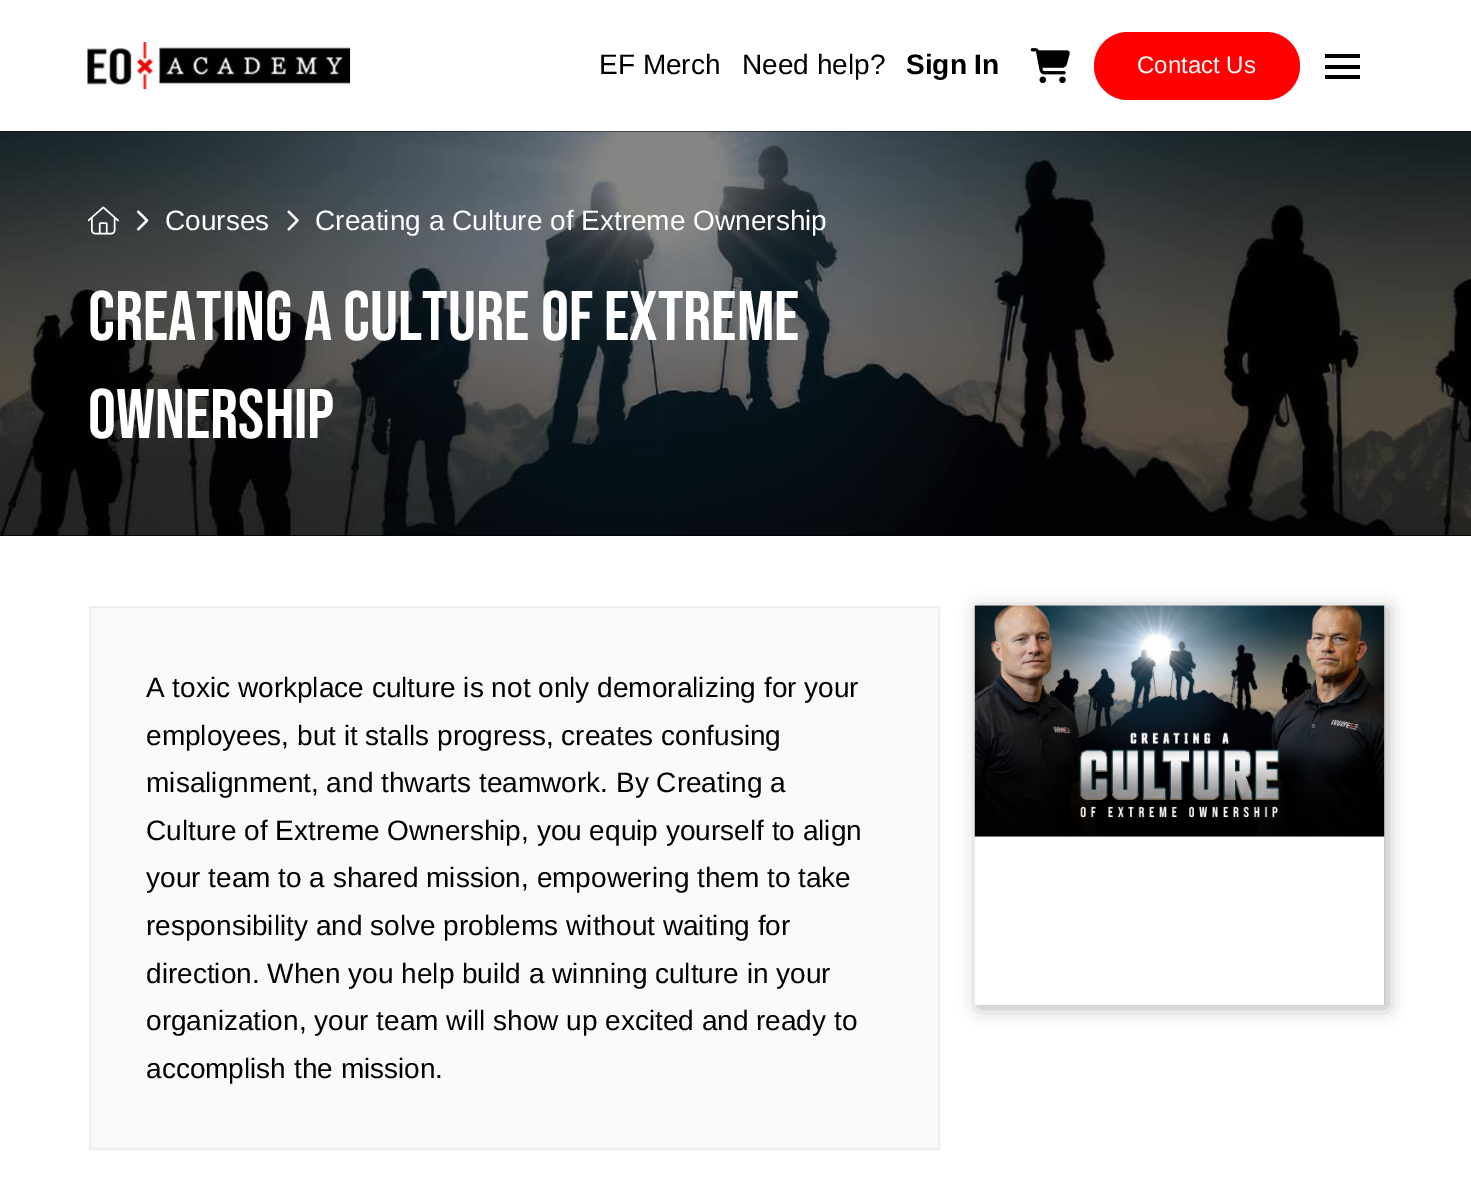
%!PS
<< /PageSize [1471 1198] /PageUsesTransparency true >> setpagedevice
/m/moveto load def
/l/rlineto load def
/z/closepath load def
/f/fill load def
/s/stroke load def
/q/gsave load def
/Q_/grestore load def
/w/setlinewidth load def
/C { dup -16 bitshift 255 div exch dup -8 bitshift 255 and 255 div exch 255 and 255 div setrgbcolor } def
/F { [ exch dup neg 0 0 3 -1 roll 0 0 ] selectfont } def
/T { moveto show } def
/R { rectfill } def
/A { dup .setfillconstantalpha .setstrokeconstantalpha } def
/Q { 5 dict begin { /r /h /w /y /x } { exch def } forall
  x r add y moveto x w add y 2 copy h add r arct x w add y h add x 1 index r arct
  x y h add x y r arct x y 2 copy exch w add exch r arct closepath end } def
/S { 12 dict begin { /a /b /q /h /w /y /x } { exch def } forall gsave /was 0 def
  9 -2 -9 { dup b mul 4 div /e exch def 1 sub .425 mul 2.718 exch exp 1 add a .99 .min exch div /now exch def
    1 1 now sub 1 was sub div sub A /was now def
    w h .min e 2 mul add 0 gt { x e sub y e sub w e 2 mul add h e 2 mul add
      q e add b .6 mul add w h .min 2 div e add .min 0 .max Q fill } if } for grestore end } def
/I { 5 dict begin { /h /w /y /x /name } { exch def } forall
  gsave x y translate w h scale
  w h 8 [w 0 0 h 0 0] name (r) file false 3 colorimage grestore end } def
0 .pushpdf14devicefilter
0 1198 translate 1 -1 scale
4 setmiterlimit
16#FFFFFF C
0 0 1471 1198 R
(1.rgb) 87 42 264 48 I
/LiberationSans-Regular 28 F
16#000000 C
(EF Merch) 599 74 T
(Need help?) 742 74 T
/LiberationSans-Bold 28 F
(Sign In) 906 74 T
(2.rgb) 1030 48 40 36 I
16#FF0103 C
1094 32 206 68 34 Q f
/LiberationSans-Regular 24 F
16#FFFFFF C
(Contact Us) 1137 73 T
16#000000 C
1325 54 35 4 R
1325 65 35 4 R
1325 75 35 4 R
0 131 1471 405 R
(3.rgb) 0 131 1471 405 I
(4.rgb) 88 206 31 29 I
(5.rgb) 137 210 12 21 I
/LiberationSans-Regular 28 F
16#FFFFFF C
(Courses) 165 230 T
(6.rgb) 287 210 12 21 I
(Creating a Culture of Extreme Ownership) 315 230 T
/BebasNeue-Regular 70 F
(CREATING A CULTURE OF EXTREME) 88 340 T
(OWNERSHIP) 88 438 T
16#FAFAFA C
90 607 m 849 0 l 0 542 l -849 0 l z q f Q_
16#EFEFEF C
2 w
s
/LiberationSans-Regular 28 F
16#000000 C
(A toxic workplace culture is not only demoralizing for your) 146 697 T
(employees, but it stalls progress, creates confusing) 146 745 T
(misalignment, and thwarts teamwork. By Creating a) 146 792 T
(Culture of Extreme Ownership, you equip yourself to align) 146 840 T
(your team to a shared mission, empowering them to take) 146 887 T
(responsibility and solve problems without waiting for) 146 935 T
(direction. When you help build a winning culture in your) 146 983 T
(organization, your team will show up excited and ready to) 146 1030 T
(accomplish the mission.) 146 1078 T
978 609 410 399 0 9 .3 S
(7.rgb) 974 605 411 232 I
16#FFFFFF C
975 837 409 168 R
.poppdf14devicefilter showpage
